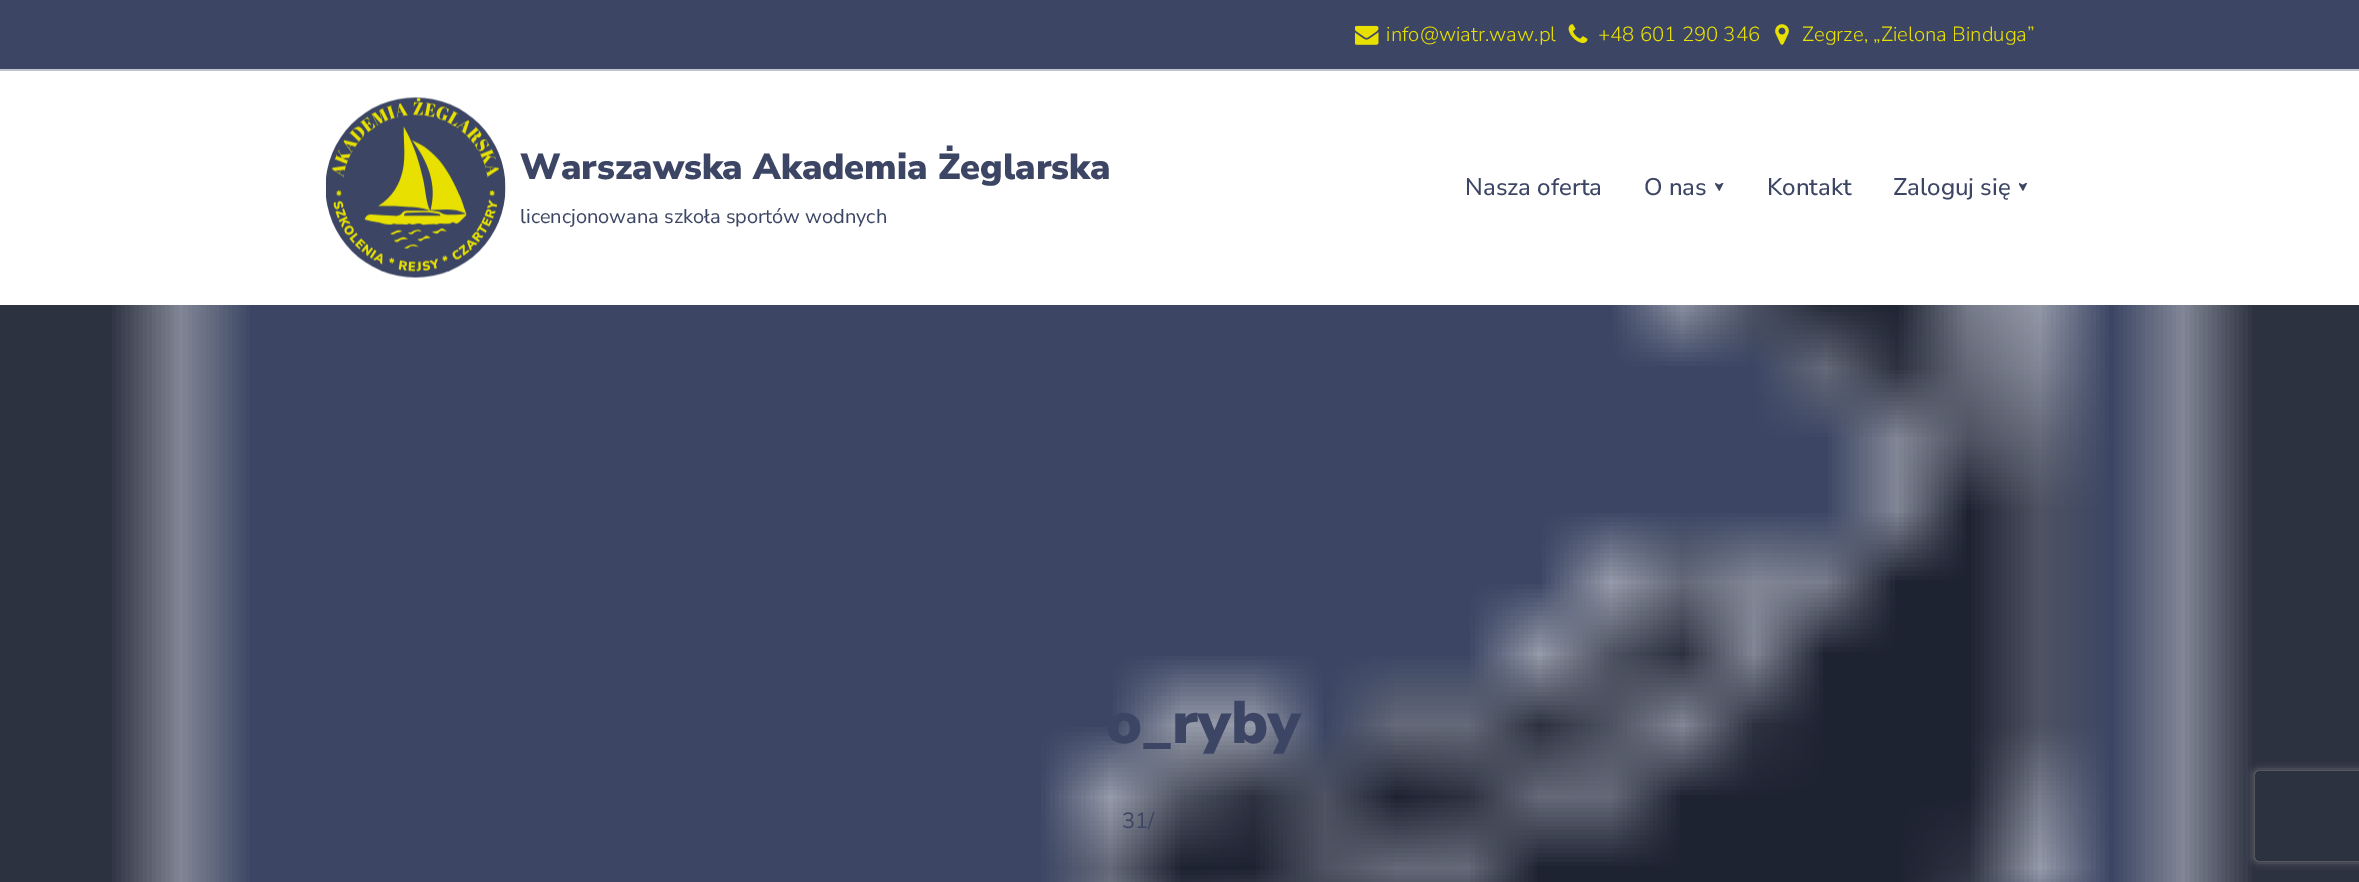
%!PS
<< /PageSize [2359 882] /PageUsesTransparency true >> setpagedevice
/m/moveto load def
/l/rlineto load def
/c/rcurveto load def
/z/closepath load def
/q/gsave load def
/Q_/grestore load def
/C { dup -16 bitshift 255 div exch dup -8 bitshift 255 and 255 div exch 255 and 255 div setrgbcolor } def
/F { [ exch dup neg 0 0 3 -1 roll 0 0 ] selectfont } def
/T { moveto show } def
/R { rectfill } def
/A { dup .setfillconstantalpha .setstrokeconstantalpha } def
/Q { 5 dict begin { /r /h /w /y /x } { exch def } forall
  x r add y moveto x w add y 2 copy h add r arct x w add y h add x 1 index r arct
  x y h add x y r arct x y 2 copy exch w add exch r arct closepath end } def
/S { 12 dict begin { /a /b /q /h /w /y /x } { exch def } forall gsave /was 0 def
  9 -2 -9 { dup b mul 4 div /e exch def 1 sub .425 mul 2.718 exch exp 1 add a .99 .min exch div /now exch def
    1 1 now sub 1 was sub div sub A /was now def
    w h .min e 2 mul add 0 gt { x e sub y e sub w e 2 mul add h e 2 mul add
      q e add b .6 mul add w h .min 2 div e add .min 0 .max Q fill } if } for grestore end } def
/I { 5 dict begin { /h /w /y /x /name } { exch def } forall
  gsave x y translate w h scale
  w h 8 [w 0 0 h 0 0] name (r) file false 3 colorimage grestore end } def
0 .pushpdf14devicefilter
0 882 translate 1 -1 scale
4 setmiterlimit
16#3C4664 C
0 0 2359 882 R
16#BFC4CF C
0 69 2359 2 R
(1.rgb) 1355 25 24 20 I
/NunitoSans-Light 20.4 F
16#E7E000 C
(info@wiatr.waw.pl) 1386 41 T
(2.rgb) 1568 24 20 20 I
(+48 601 290 346) 1598 41 T
(3.rgb) 1775 24 14 21 I
(Zegrze, „Zielona Binduga”) 1802 41 T
16#FFFFFF C
0 71 2359 234 R
(4.rgb) 326 97 180 181 I
/NunitoSans-Black 36 F
16#3C4664 C
(Warszawska Akademia Żeglarska) 520 179 T
/NunitoSans-Regular 20 F
(licencjonowana szkoła sportów wodnych) 520 223 T
/NunitoSans-Medium 24 F
(Nasza oferta) 1465 195 T
(O nas) 1644 195 T
(5.rgb) 1715 183 9 8 I
(Kontakt) 1767 195 T
(Zaloguj się) 1893 195 T
(6.rgb) 2019 183 9 8 I
(7.rgb) 0 305 2359 577 I
/NunitoSans-Black 60 F
(o_ryby) 1106 743 T
/NunitoSans-Regular 22 F
(31/) 1122 828 T
q
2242 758 m 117 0 l 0 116 l -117 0 l z 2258 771 m 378 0 l 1.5 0 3 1.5 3 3 c 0 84 l 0 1.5 -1.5 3 -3 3 c -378 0 l -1.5 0 -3 -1.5 -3 -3 c 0 -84 l 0 -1.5 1.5 -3 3 -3 c z eoclip newpath
16#808080 C
2255 771 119 90 3 4 1 S
Q_
.poppdf14devicefilter showpage
